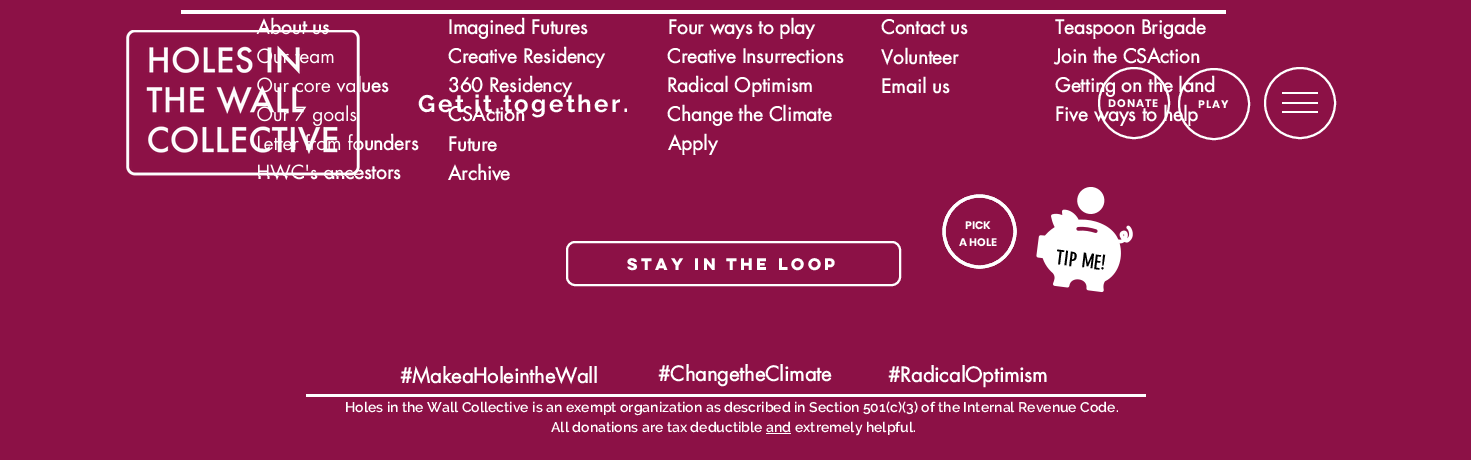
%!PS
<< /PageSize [1471 460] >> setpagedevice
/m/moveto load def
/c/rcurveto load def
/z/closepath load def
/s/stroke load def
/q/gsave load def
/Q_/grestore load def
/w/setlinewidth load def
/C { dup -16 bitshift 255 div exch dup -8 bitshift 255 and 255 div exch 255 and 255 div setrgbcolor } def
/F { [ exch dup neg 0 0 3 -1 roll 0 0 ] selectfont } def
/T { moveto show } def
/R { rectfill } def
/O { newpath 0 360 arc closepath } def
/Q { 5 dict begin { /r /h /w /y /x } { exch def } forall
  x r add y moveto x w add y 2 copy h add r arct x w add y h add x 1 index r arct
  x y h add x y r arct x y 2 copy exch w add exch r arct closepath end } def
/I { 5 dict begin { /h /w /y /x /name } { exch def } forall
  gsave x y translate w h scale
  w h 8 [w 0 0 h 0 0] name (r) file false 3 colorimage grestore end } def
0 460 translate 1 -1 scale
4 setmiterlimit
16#8C1146 C
0 0 1471 460 R
16#FFFFFF C
181 10 1045 4 R
/futura-Bold 19 F
(About us) 257 34 T
(eam) 299 63 T
(r core values) 283 92 T
(Our 7 goals) 257 121 T
(Letter from founders) 257 150 T
(HWC's ancestors) 257 179 T
(Imagined Futures) 448 34 T
(Creative Residency) 448 63 T
(360 Residency) 448 92 T
(CSAction) 448 121 T
(Future) 448 151 T
(Archive) 448 180 T
(Four ways to play) 668 34 T
(Creative Insurrections) 667 63 T
(Radical Optimism) 667 92 T
(Change the Climate) 667 121 T
(Apply) 668 150 T
(Contact us) 881 34 T
(Volunteer) 881 64 T
(Email us) 881 93 T
(Teaspoon Brigade) 1055 34 T
(Join the CSAction) 1055 63 T
(Getting on the land) 1055 92 T
(Five ways to help) 1055 121 T
3 w
1015 231.5 m 0 19.5 -16 35.5 -35.5 35.5 c -19.5 0 -35.5 -16 -35.5 -35.5 c 0 -19.5 16 -35.5 35.5 -35.5 c 19.5 0 35.5 16 35.5 35.5 c z s
1015 231.5 m 0 19.5 -16 35.5 -35.5 35.5 c -19.5 0 -35.5 -16 -35.5 -35.5 c 0 -19.5 16 -35.5 35.5 -35.5 c 19.5 0 35.5 16 35.5 35.5 c z s
/Poppins-Bold 11 F
(PICK) 965 229 T
(A HOLE) 959 246 T
2 w
567 242 333 43 8 Q s
/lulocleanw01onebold-Bold 15 F
(Stay in the Loop) 627 270 T
(1.rgb) 1036 187 97 106 I
/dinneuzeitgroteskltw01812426-Regular 20 F
16#000000 C
q 1055 264 translate 6.8 rotate 0 0 m (TIP ME!) show Q_
/futura-Bold 20 F
16#FFFFFF C
(#MakeaHoleintheWall) 400 383 T
(#ChangetheClimate) 658 381 T
(#RadicalOptimism) 888 382 T
306 394 840 3 R
/Raleway-SemiBold 14 F
(Holes in the Wall Collective is an exempt organization as described in Section 501\(c\)\(3\) of the Internal Revenue Code.) 345 412 T
(All donations are tax deductible and extremely helpful.) 551 432 T
766 433 25 1 R
(2.rgb) 126 30 234 146 I
/Raleway-Bold 24 F
418 112 m 2.4 0 (Get it together.) ashow
1134 103 35 O s
/Poppins-Bold 11 F
1108 107 m 1 0 (DONATE) ashow
1214 104 35 O s
1198 108 m 1 0 (PLAY) ashow
1335 103 m 0 19.5 -15.5 35 -35 35 c -19.5 0 -35 -15.5 -35 -35 c 0 -19.5 15.5 -35 35 -35 c 19.5 0 35 15.5 35 35 c z s
1282 92 36 2 R
1282 102 36 2 R
1282 111 36 2 R
showpage
